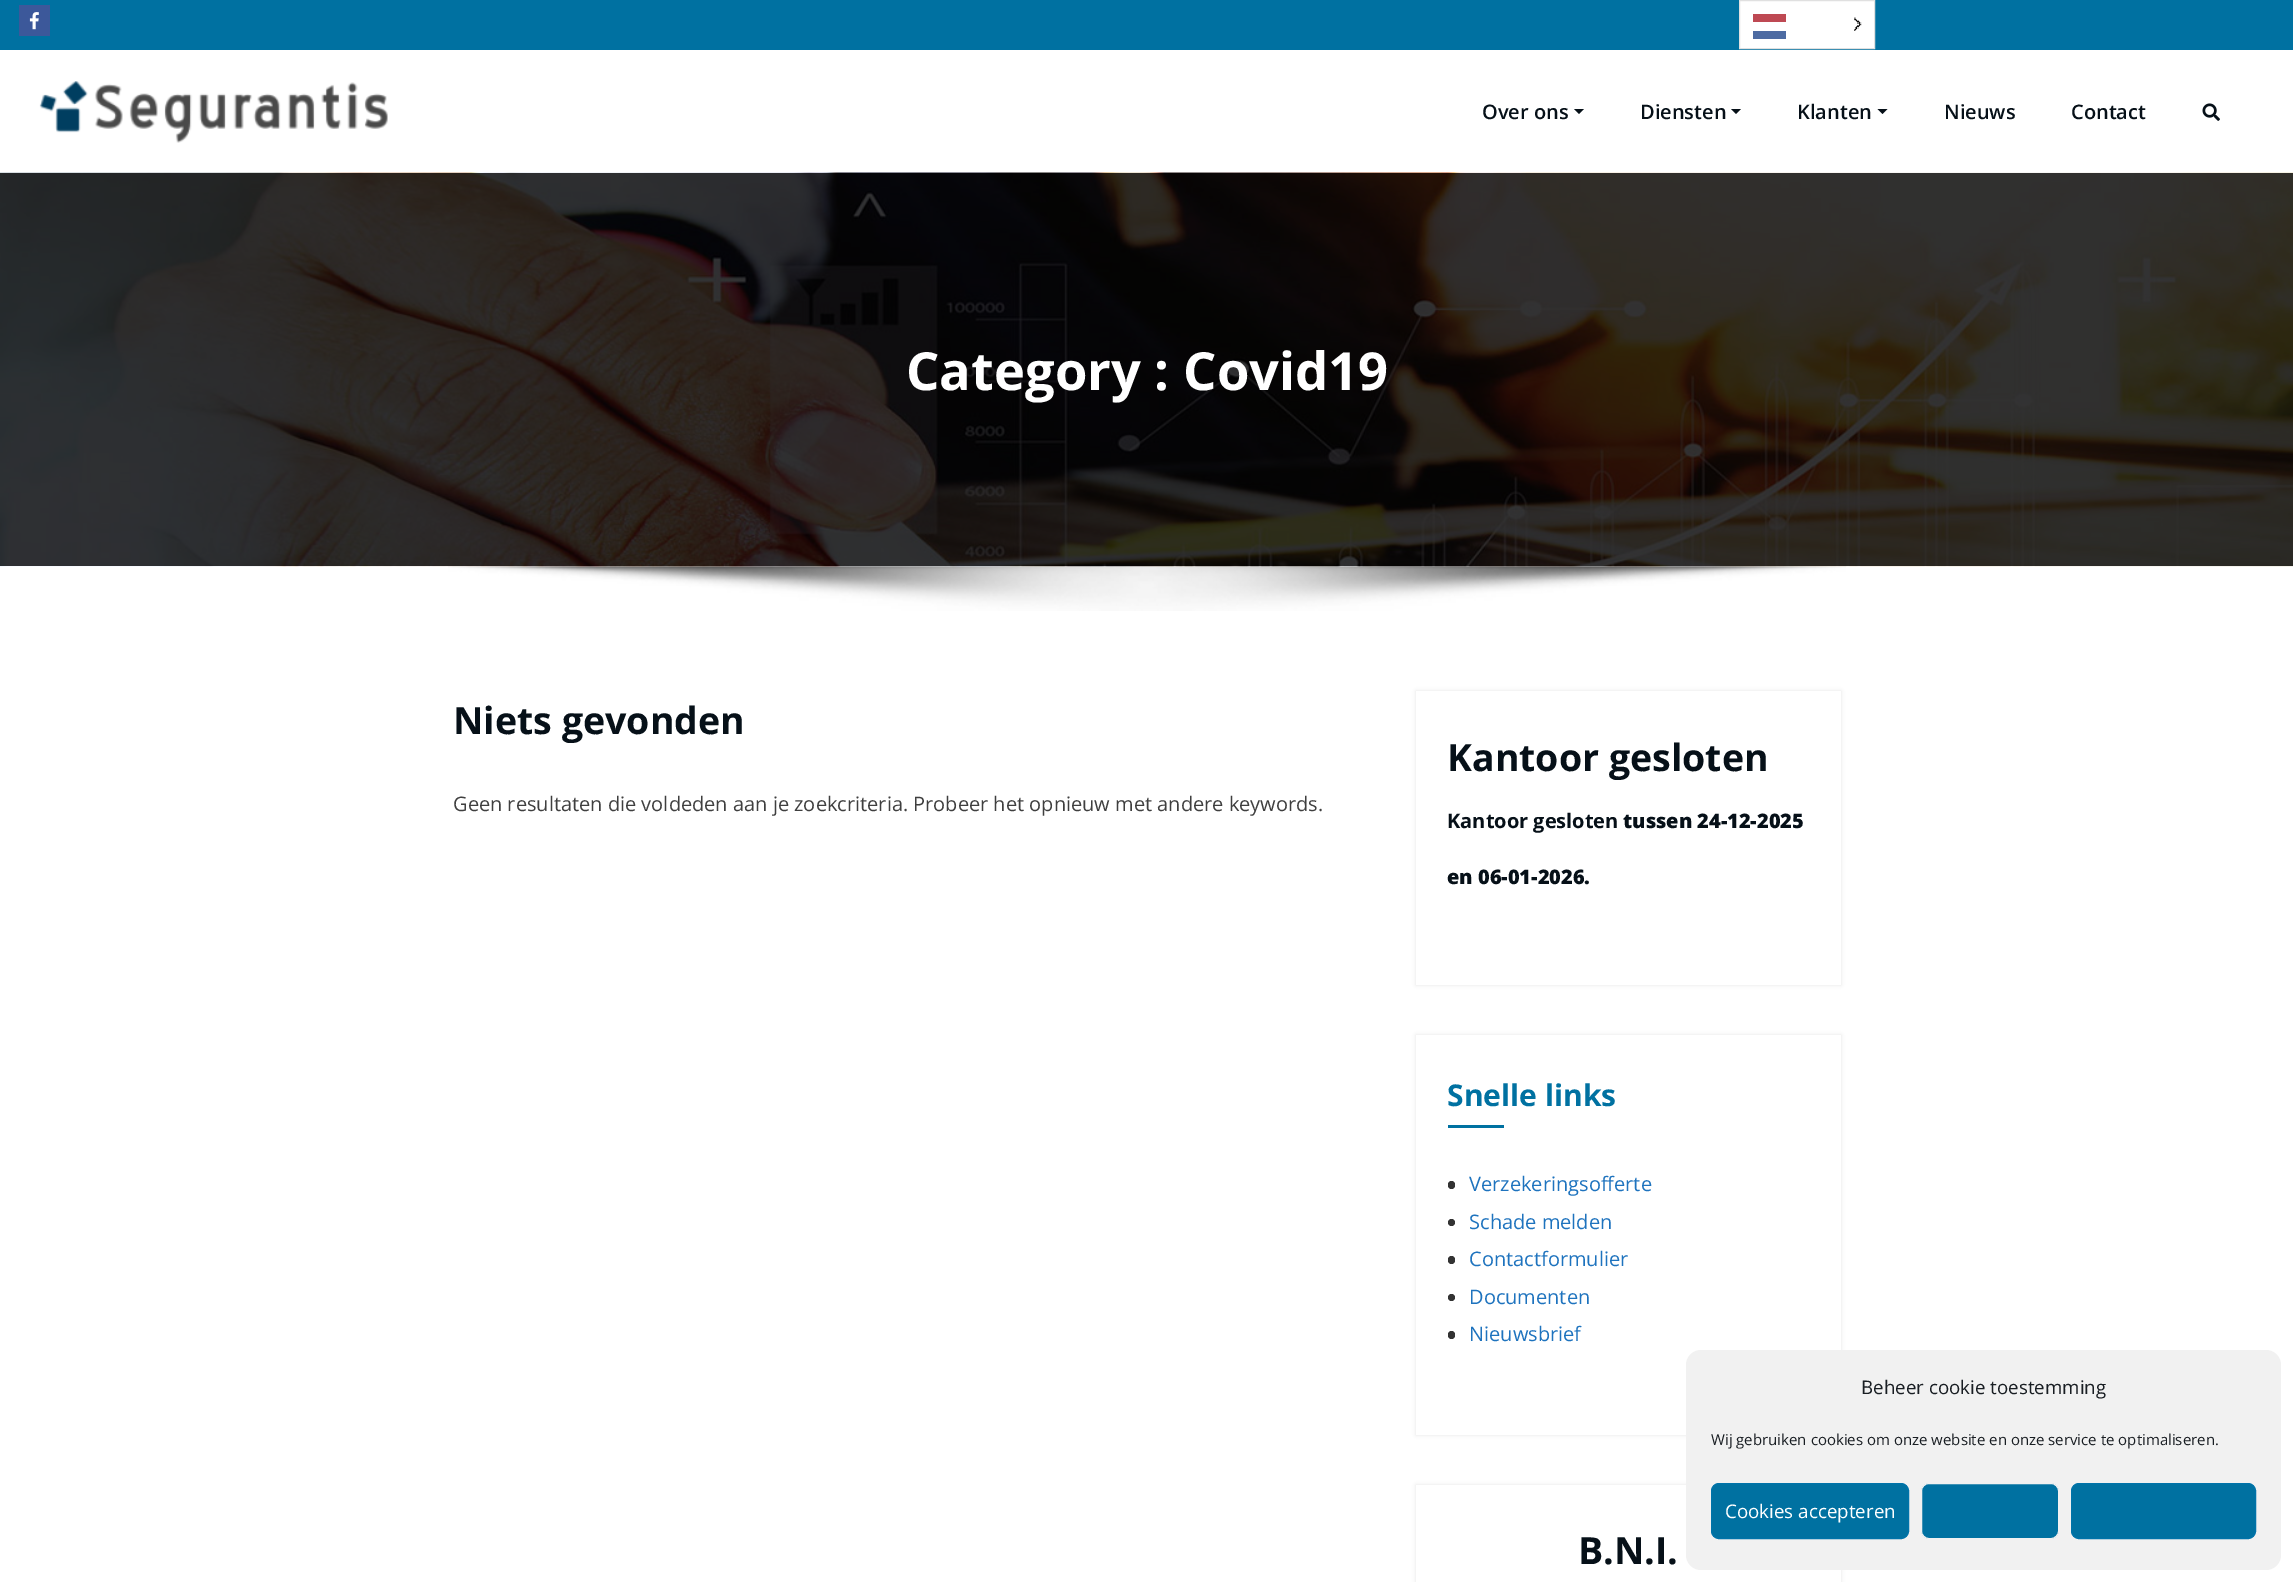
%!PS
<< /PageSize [2293 1582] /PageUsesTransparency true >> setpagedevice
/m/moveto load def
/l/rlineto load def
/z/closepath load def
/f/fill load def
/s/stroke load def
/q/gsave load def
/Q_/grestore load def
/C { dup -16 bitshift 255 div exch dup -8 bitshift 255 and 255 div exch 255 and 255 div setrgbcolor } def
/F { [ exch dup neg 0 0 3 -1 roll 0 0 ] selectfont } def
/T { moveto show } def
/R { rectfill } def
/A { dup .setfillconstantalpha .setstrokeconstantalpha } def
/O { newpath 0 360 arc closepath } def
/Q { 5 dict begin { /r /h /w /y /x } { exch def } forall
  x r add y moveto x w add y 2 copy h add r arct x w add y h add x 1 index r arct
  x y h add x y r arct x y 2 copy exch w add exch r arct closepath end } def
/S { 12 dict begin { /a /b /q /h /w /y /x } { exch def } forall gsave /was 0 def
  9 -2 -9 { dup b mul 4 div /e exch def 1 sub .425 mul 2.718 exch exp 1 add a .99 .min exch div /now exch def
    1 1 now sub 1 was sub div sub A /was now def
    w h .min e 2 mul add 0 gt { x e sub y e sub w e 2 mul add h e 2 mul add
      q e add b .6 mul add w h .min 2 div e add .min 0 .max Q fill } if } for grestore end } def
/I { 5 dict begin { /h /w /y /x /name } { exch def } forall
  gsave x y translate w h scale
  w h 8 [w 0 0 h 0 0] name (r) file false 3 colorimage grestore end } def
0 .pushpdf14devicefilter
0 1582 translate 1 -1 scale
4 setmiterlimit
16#FFFFFF C
0 0 2293 1582 R
16#0071A1 C
0 0 2293 50 R
16#3C589A C
19 5 31 31 R
(1.rgb) 29 12 10 18 I
16#FFFFFF C
1739.5 .5 m 135 0 l 0 48 l -135 0 l z q f Q_
16#E0E0E0 C
s
16#BE4953 C
1753 14 33 8 R
16#4D6BA2 C
1753 31 33 8 R
(2.rgb) 1854 17 8 14 I
(3.rgb) 39 81 349 62 I
/OpenSans-SemiBold 20 F
16#061018 C
(Over ons) 1482 119 T
1574 109 m 10 0 l -5 5 l z f
(Diensten) 1640 119 T
1731 109 m 10 0 l -5 5 l z f
(Klanten) 1797 119 T
1877.5 109 m 10 0 l -5 5 l z f
(Nieuws) 1944 119 T
(Contact) 2071 119 T
(4.rgb) 2202 103 18 18 I
(5.rgb) 0 172 2293 395 I
/OpenSans-Bold 52.5 F
16#FFFFFF C
(Category : Covid19) 906 390 T
(6.rgb) 448 566 1398 45 I
/OpenSans-Bold 37.5 F
16#061018 C
(Niets gevonden) 453 734 T
/OpenSans-Regular 20 F
16#3F3F3F C
(Geen resultaten die voldeden aan je zoekcriteria. Probeer het opnieuw met andere keywords.) 453 811 T
q
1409 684 m 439 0 l 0 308 l -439 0 l z 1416 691 m 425 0 l 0 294 l -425 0 l z eoclip newpath
16#000000 C
1416 691 425 294 0 2 .11 S
Q_
/OpenSans-Bold 37.5 F
16#061018 C
(Kantoor gesloten) 1447 771 T
/OpenSans-Bold 20 F
(Kantoor gesloten) 1447 828 T
/OpenSans-ExtraBold 20 F
(tussen 24-12-2025) 1623 828 T
(en 06-01-2026.) 1447 884 T
q
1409 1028 m 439 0 l 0 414 l -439 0 l z 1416 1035 m 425 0 l 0 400 l -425 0 l z eoclip newpath
16#000000 C
1416 1035 425 400 0 2 .11 S
Q_
/OpenSans-Bold 30 F
16#0071A1 C
(Snelle links) 1447 1106 T
1448 1125 56 3 R
16#333333 C
1448 1181 7 8 3.5 Q f
/OpenSans-Regular 20 F
16#1E73BE C
(Verzekeringsofferte) 1469 1191 T
16#333333 C
1451.5 1222.5 3.5 O f
16#1E73BE C
(Schade melden) 1469 1229 T
16#333333 C
1448 1256 7 8 3.5 Q f
16#1E73BE C
(Contactformulier) 1469 1266 T
16#333333 C
1451.5 1297.5 3.5 O f
16#1E73BE C
(Documenten) 1469 1304 T
16#333333 C
1448 1331 7 8 3.5 Q f
16#1E73BE C
(Nieuwsbrief) 1469 1341 T
q
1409 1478 m 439 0 l 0 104 l -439 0 l z 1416 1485 m 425 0 l 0 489 l -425 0 l z eoclip newpath
16#000000 C
1416 1485 425 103 0 2 .11 S
Q_
/OpenSans-Bold 37.5 F
16#061018 C
(B.N.I.) 1578 1564 T
16#F1F1F1 C
1686 1350 595 220 15 Q f
/OpenSans-Regular 18.75 F
16#191E23 C
(Beheer cookie toestemming) 1861 1394 T
/OpenSans-Regular 15 F
(Wij gebruiken cookies om onze website en onze service te optimaliseren.) 1711 1445 T
16#0071A1 C
1711.5 1483.5 197 55 7.5 Q q f Q_
16#0073AA C
s
/OpenSans-Regular 18.75 F
16#FFFFFF C
(Cookies accepteren) 1725 1518 T
16#0071A1 C
1921.5 1483.5 137 55 7.5 Q q f Q_
16#F1F1F1 C
s
16#0071A1 C
2071.5 1483.5 184 55 7.5 Q q f Q_
16#0073AA C
s
.poppdf14devicefilter showpage
